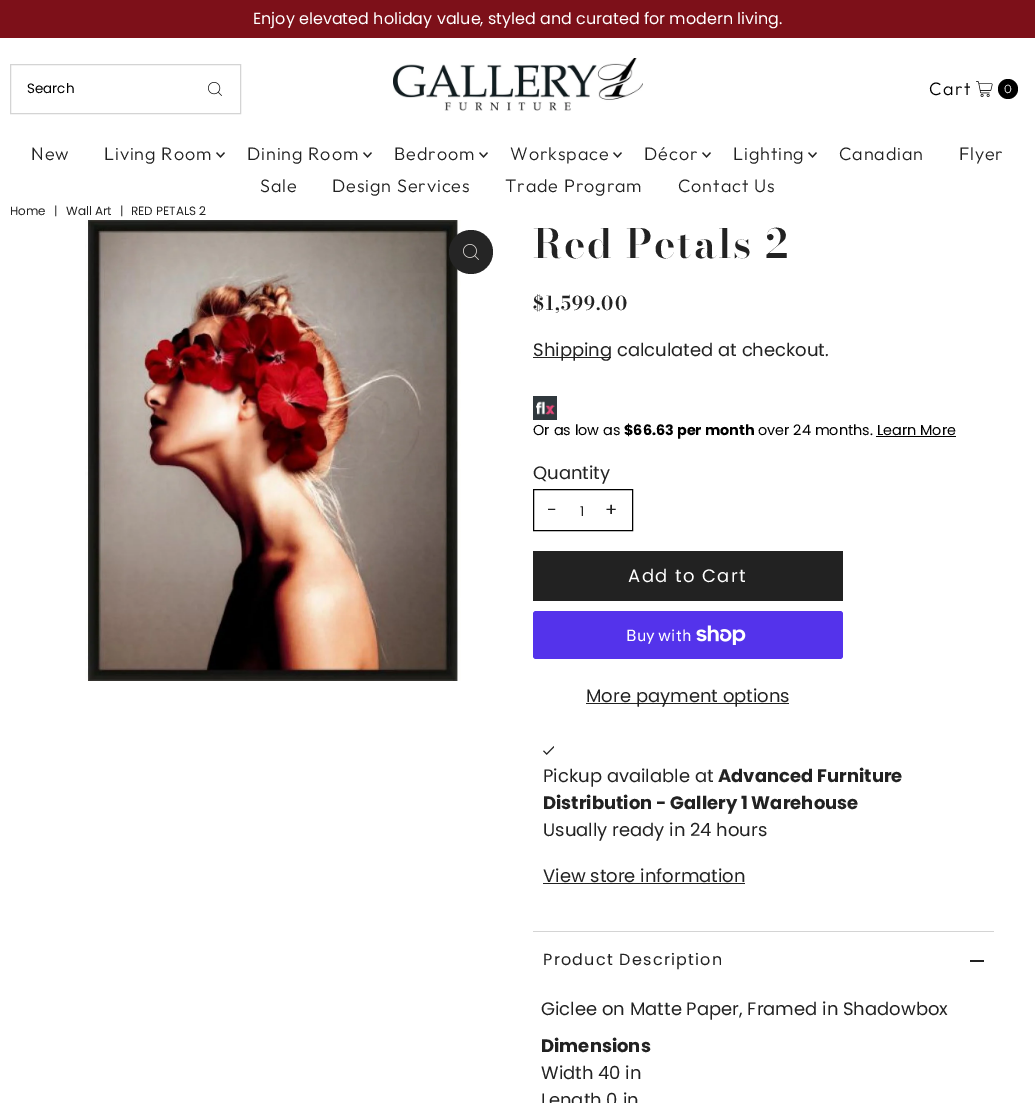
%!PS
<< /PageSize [1035 1103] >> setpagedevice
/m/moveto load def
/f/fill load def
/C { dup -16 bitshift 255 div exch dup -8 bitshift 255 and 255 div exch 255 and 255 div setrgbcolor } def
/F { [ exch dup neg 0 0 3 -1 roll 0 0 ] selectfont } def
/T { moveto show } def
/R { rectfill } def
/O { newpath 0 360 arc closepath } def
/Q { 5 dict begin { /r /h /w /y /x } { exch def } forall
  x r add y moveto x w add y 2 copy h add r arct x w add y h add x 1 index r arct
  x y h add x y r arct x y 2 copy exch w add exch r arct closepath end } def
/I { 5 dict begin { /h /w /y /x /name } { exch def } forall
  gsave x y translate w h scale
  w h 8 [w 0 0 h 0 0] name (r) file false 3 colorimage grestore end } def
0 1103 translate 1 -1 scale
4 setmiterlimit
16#FFFFFF C
0 0 1035 1103 R
16#7D1019 C
0 0 1035 38 R
/Poppins-Regular 16 F
16#FFFFFF C
(Enjoy elevated holiday value, styled and curated for modern living.) 253 24 T
16#D4D4D4 C
10.5 64.5 230 49 rectstroke
/Poppins-Regular 13.5 F
16#000000 C
(Search) 27 93 T
(1.rgb) 208 82 14 14 I
(2.rgb) 393 58 250 53 I
/Outfit-Light 18 F
929 95 m 1.4 0 (Cart) ashow
(3.rgb) 976 81 17 16 I
1008 89 10 O f
/Outfit-Light 12 F
16#FFFFFF C
(0) 1004 93 T
/Outfit-Light 18 F
16#222222 C
31 160 m .9 0 (New) ashow
104 160 m .9 0 (Living Room) ashow
(4.rgb) 216 152 9 6 I
247 160 m .9 0 (Dining Room) ashow
(4.rgb) 363 152 9 6 I
394 160 m .9 0 (Bedroom) ashow
(4.rgb) 479 152 9 6 I
510 160 m .9 0 (Workspace) ashow
(4.rgb) 613 152 9 6 I
644 160 m .9 0 (Décor) ashow
(4.rgb) 702 152 9 6 I
733 160 m .9 0 (Lighting) ashow
(4.rgb) 808 152 9 6 I
839 160 m .9 0 (Canadian) ashow
959 160 m .9 0 (Flyer) ashow
260 192 m .9 0 (Sale) ashow
332 192 m .9 0 (Design Services) ashow
505 192 m .9 0 (Trade Program) ashow
678 192 m .9 0 (Contact Us) ashow
/Poppins-Regular 12 F
(Home) 10 215 T
(|) 54 215 T
(Wall Art) 66 215 T
(|) 120 215 T
(RED PETALS 2) 131 215 T
(5.rgb) 85 220 376 461 I
16#252525 C
471 252 22 O f
(6.rgb) 463 244 16 16 I
/BodoniModa-SemiBold 40 F
16#222222 C
533 258 m 2 0 (Red Petals 2) ashow
/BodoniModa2-SemiBold 19 F
533 310 m 1 0 ($1,599.00) ashow
533 357 78 1 R
/Poppins-Regular 18 F
(Shipping calculated at checkout.) 533 356 T
(7.rgb) 533 396 24 24 I
/Poppins-Regular 14.4 F
16#000000 C
(Or as low as) 533 435 T
/Poppins-Bold 14.4 F
($66.63 per month) 624 435 T
/Poppins-Regular 14.4 F
(over 24 months. Learn More) 758 435 T
876 436 80 1 R
/Poppins-Regular 18 F
16#222222 C
(Quantity) 533 479 T
16#000000 C
533.5 489.5 99 41 rectstroke
16#222222 C
547 516 m 1.4 0 (-) ashow
/Poppins-Regular 13.5 F
(1) 580 516 T
/Poppins-Regular 18 F
605 516 m 1.4 0 (+) ashow
533 551 310 50 R
16#FFFFFF C
628 582 m 1.4 0 (Add to Cart) ashow
16#5433EB C
533 611 310 48 3 Q f
/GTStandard-Regular 16 F
16#FFFFFF C
(Buy with) 626 641 T
(8.rgb) 696 625 50 20 I
16#222222 C
586 703 203 1 R
/Poppins-Regular 18 F
(More payment options) 586 702 T
(9.rgb) 543 746 11 9 I
(Pickup available at) 543 782 T
/Poppins-Bold 18 F
(Advanced Furniture) 718 782 T
(Distribution - Gallery 1 Warehouse) 543 809 T
/Poppins-Regular 18 F
(Usually ready in 24 hours) 543 836 T
(View store information) 543 882 T
543 883 202 1 R
16#D4D4D4 C
533 931 461 1 R
/Poppins-Regular 16 F
16#222222 C
543 965 m 1.25 0 (Product Description) ashow
970 960 14 2 R
/Poppins-Regular 18 F
(Giclee on Matte Paper, Framed in Shadowbox) 541 1015 T
/Poppins-Bold 18 F
(Dimensions) 541 1052 T
/Poppins-Regular 18 F
(Width 40 in) 541 1079 T
(Length 0 in) 541 1106 T
showpage
